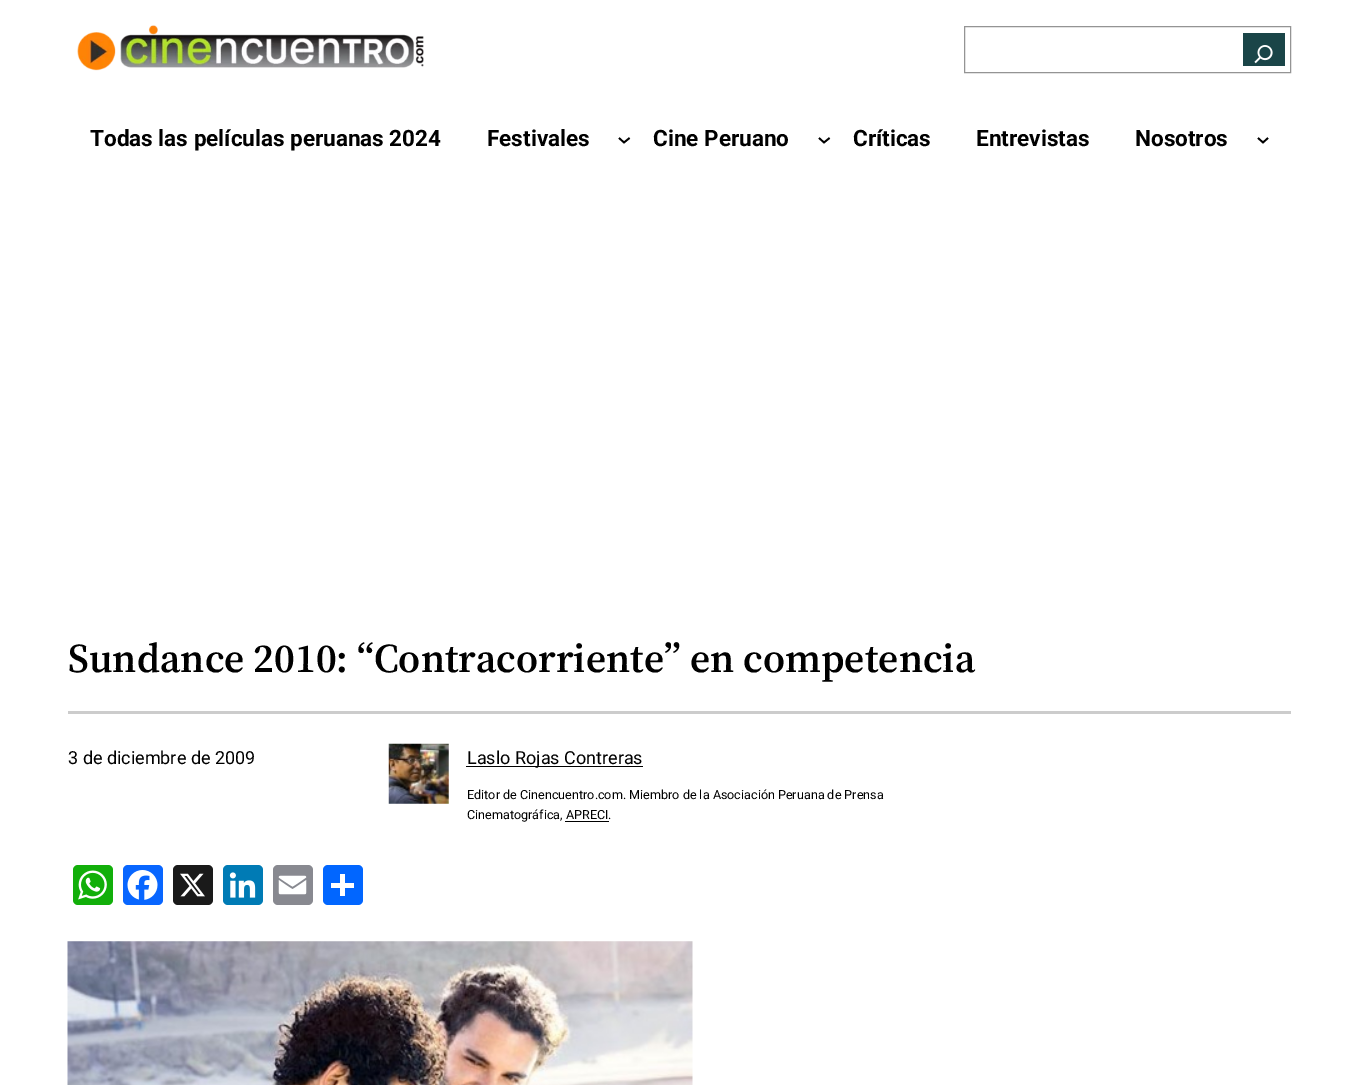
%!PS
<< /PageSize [1358 1085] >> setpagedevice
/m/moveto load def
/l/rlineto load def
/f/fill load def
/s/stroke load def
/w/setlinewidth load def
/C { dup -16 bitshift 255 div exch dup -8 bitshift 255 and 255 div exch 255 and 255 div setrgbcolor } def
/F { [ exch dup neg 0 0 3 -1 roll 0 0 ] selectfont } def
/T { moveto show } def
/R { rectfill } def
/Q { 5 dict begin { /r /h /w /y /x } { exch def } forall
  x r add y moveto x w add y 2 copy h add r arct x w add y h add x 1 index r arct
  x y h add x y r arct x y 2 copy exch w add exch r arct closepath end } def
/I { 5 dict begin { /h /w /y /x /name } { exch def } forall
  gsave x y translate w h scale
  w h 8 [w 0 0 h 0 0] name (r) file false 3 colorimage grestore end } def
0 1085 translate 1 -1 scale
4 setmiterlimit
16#FFFFFF C
0 0 1358 1085 R
(1.rgb) 77 25 347 46 I
16#949494 C
964.5 26.5 326 46 rectstroke
16#1A4548 C
1243 33 42 33 R
(2.rgb) 1254 45 19 19 I
/Roboto-Bold 22.5 F
16#000000 C
(Todas las películas peruanas 2024) 90 146 T
(Festivales) 487 146 T
1.7 w
619 138 m 5 4.5 l 5.5 -4.5 l s
(Cine Peruano) 653 146 T
819 138 m 5 4.5 l 5.5 -4.5 l s
(Críticas) 853 146 T
(Entrevistas) 976 146 T
(Nosotros) 1135 146 T
1258 138 m 5 4.5 l 5 -4.5 l s
/SourceSerif4-SemiBold 40.75 F
(Sundance 2010: “Contracorriente” en competencia) 68 672 T
16#CCCCCC C
68 711 1223 3 R
/Roboto-Regular 18 F
16#000000 C
(3 de diciembre de 2009) 68 764 T
(3.rgb) 388 743 61 61 I
466 766 177 1 R
(Laslo Rojas Contreras) 467 764 T
/Roboto-Regular 12.6 F
(Editor de Cinencuentro.com. Miembro de la Asociación Peruana de Prensa) 467 799 T
(Cinematográfica, APRECI.) 467 819 T
565 821 44 1 R
16#12AF0A C
73 865 40 40 5 Q f
(4.rgb) 78 870 29 30 I
16#0866FF C
123 865 40 40 5 Q f
(5.rgb) 127 870 31 30 I
16#1A1A1A C
173 865 40 40 5 Q f
(6.rgb) 180 873 25 24 I
16#007BB5 C
223 865 40 40 5 Q f
(7.rgb) 229 872 27 26 I
16#888990 C
273 865 40 40 5 Q f
(8.rgb) 278 875 29 20 I
16#0166FF C
323 865 40 40 5 Q f
16#FFFFFF C
340 874 5 22 R
331 883 23 5 R
(9.rgb) 67 941 626 144 I
showpage
